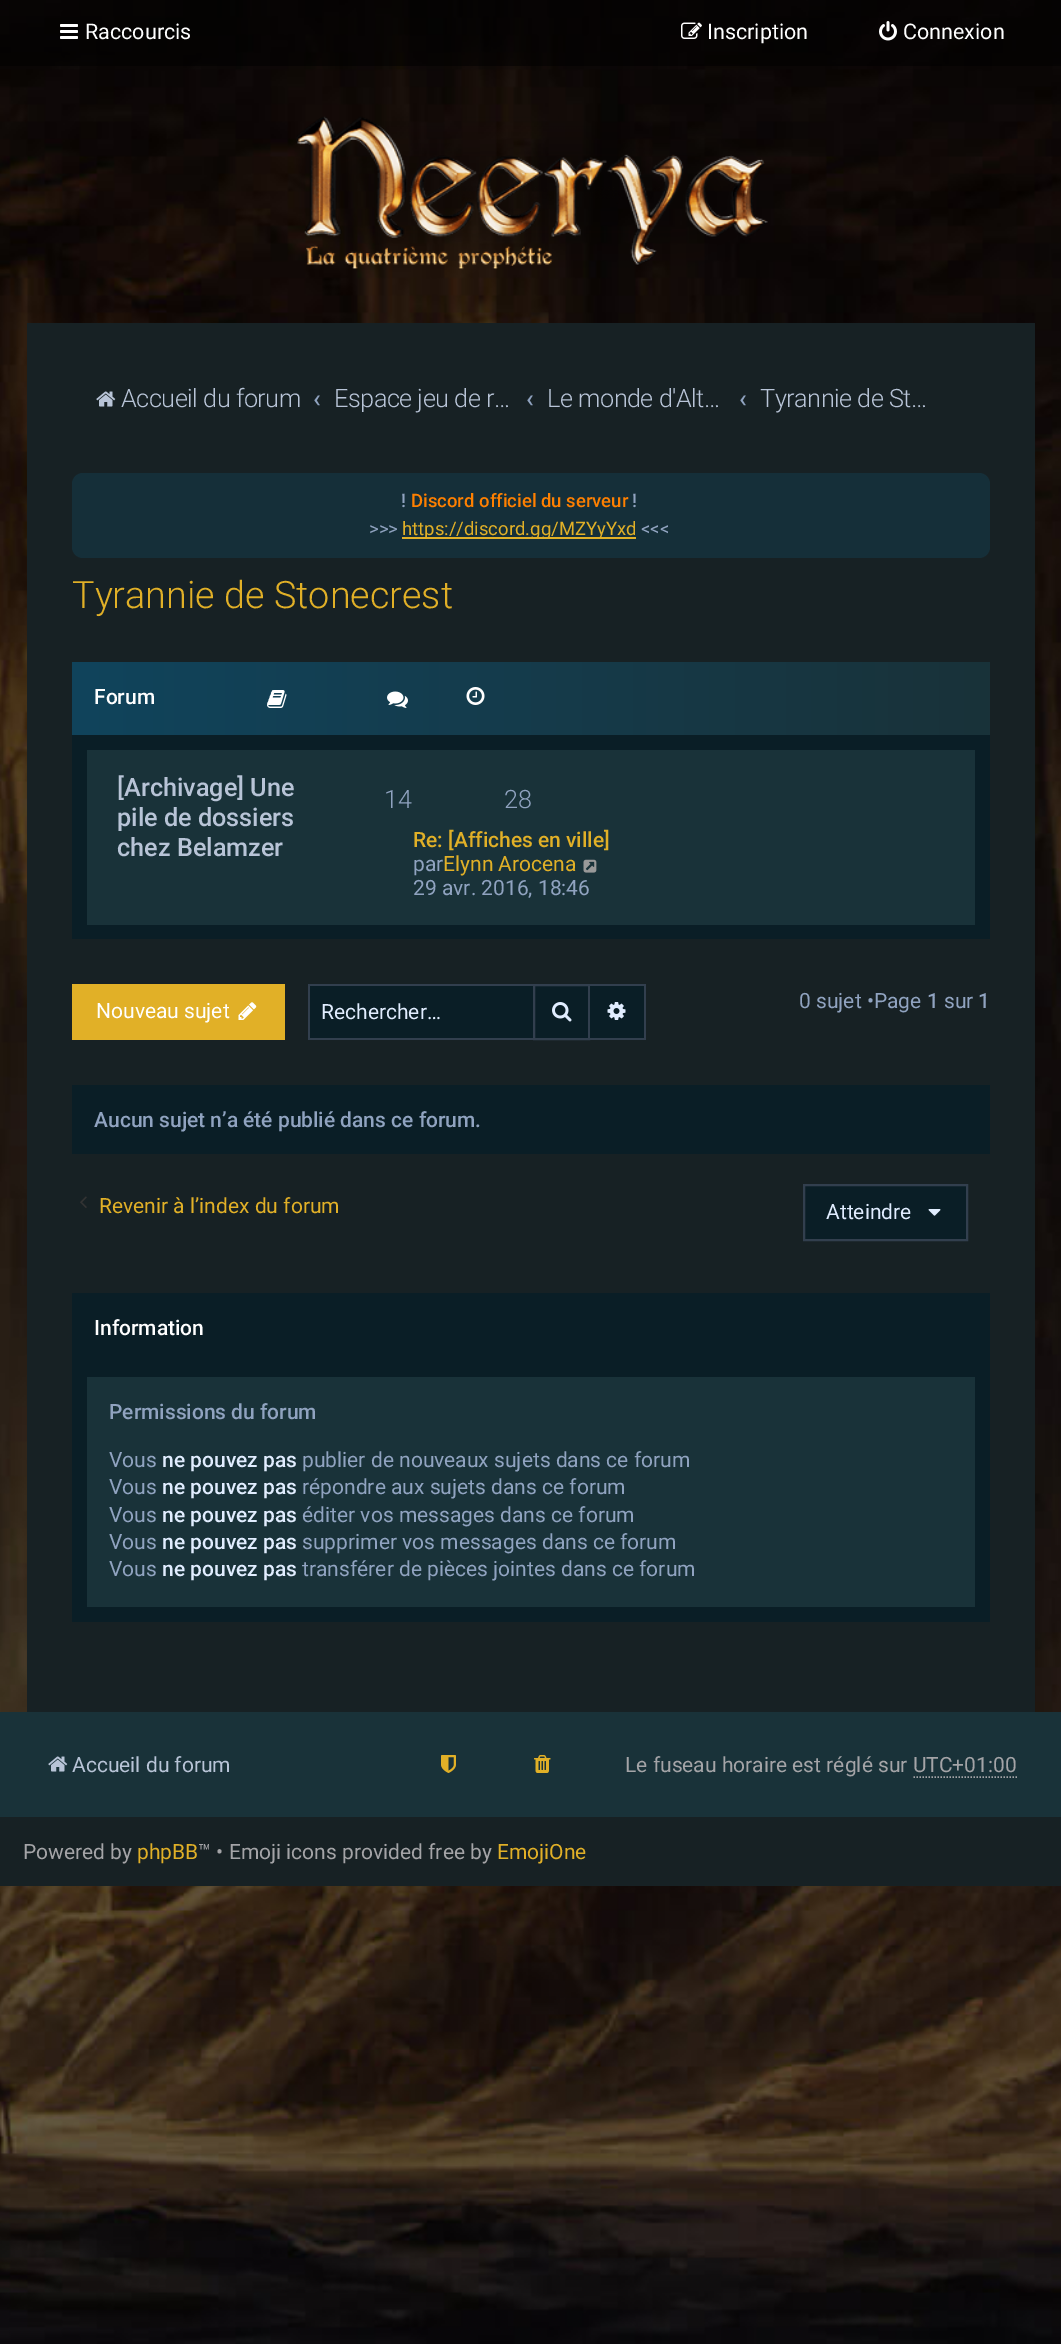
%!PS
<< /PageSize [1061 2344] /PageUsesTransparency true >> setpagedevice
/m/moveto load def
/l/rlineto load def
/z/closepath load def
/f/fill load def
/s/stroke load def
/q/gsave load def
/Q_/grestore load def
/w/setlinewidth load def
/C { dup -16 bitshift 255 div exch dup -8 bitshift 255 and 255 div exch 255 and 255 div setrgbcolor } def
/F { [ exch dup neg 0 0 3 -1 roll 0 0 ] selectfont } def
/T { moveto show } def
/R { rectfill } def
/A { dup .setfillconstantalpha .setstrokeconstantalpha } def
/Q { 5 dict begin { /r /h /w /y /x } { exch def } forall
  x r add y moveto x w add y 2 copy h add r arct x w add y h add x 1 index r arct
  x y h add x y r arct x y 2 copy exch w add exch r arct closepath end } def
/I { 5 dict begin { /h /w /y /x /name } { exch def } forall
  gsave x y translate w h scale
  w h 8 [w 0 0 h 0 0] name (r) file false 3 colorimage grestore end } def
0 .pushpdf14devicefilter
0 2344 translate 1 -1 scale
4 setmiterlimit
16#FFFFFF C
0 0 1061 2344 R
(1.rgb) 0 0 1061 2344 I
0.5 A
16#000000 C
0 0 1061 66 R
1 A
(2.rgb) 60 24 18 15 I
/Roboto-Regular 21.5 F
16#FFFFFF C
(Raccourcis) 85 39 T
(3.rgb) 681 22 21 17 I
(Inscription) 707 39 T
(4.rgb) 879 21 18 20 I
(Connexion) 903 39 T
(5.rgb) 296 116 472 154 I
16#172124 C
27 323 1008 1389 R
(6.rgb) 96 391 20 16 I
/Roboto-Light 25.25 F
16#B8C4D7 C
121 407 m -.5 0 (Accueil du forum) ashow
/Roboto-Medium 25.25 F
16#90A3C0 C
(‹) 313 407 T
/Roboto-Light 25.25 F
16#B8C4D7 C
334 407 m -.5 0 (Espace jeu de r…) ashow
/Roboto-Medium 25.25 F
16#90A3C0 C
(‹) 526 407 T
/Roboto-Light 25.25 F
16#B8C4D7 C
547 407 m -.5 0 (Le monde d'Alt…) ashow
/Roboto-Medium 25.25 F
16#90A3C0 C
(‹) 739 407 T
/Roboto-Light 25.25 F
16#B8C4D7 C
760 407 m -.5 0 (Tyrannie de St…) ashow
16#152F39 C
72 473 918 85 11 Q f
/Roboto-Medium 18.5 F
16#90A3C0 C
(!) 401 507 T
16#FF8000 C
(Discord officiel du serveur) 411 507 T
16#90A3C0 C
(!) 632 507 T
/Roboto-Regular 18.5 F
(>>>) 369 535 T
16#E1B027 C
402 537 234 2 R
(https://discord.gg/MZYyYxd) 402 535 T
16#90A3C0 C
(<<<) 641 535 T
/Roboto-Light 37.75 F
16#E1B027 C
(Tyrannie de Stonecrest) 72 608 T
16#0A1E26 C
72 735 918 204 R
q 72 662 m 918 0 l 0 73 l -918 0 l z clip newpath
<< /ShadingType 2 /ColorSpace /DeviceRGB /Coords [72 698 990 698] /Extend [true true] /Function << /FunctionType 2 /Domain [0 1] /C0 [.063 .267 .361] /C1 [.098 .196 .224] /N 1 >> >> shfill Q_
/Roboto-Medium 21 F
16#FFFFFF C
(Forum) 94 704 T
(7.rgb) 267 690 20 18 I
(8.rgb) 387 691 21 17 I
(9.rgb) 466 687 19 18 I
16#193239 C
87 750 888 175 R
/Roboto-Medium 25.25 F
16#B8C4D7 C
([Archivage] Une) 117 796 T
(pile de dossiers) 117 826 T
(chez Belamzer) 117 856 T
/Roboto-Light 25.25 F
16#90A3C0 C
(14) 384 808 T
(28) 504 808 T
/Roboto-Medium 21 F
16#E1B027 C
(Re: [Affiches en ville]) 413 847 T
/Roboto-Regular 21 F
16#90A3C0 C
(par) 413 871 T
16#E1B027 C
(Elynn Arocena) 443 871 T
(10.rgb) 583 859 14 14 I
16#90A3C0 C
(29 avr. 2016, 18:46) 413 895 T
16#E1B027 C
72 984 213 56 R
16#FFFFFF C
(Nouveau sujet) 96 1018 T
(11.rgb) 238 1002 19 18 I
16#0A1E26 C
310 986 223 52 R
16#323F4E C
308 984 225 2 R
308 1038 225 2 R
308 984 2 56 R
16#E1EDFF C
(Rechercher…) 321 1019 T
16#0A1E26 C
534 985 m 55 0 l 0 54 l -55 0 l z q f Q_
16#323F4E C
2 w
s
(12.rgb) 552 1002 20 20 I
16#0A1E26 C
590 986 54 52 R
16#323F4E C
590 984 55 2 R
644 984 2 56 R
590 1038 55 2 R
(13.rgb) 607 1002 19 18 I
16#90A3C0 C
(0 sujet •Page) 799 1008 T
/Roboto-Medium 21 F
(1) 927 1008 T
/Roboto-Regular 21 F
(sur) 944 1008 T
/Roboto-Medium 21 F
(1) 978 1008 T
16#0A1E26 C
72 1085 918 69 R
16#90A3C0 C
(Aucun sujet n’a été publié dans ce forum.) 94 1127 T
(14.rgb) 80 1196 7 12 I
/Roboto-Regular 21 F
16#E1B027 C
(Revenir à l’index du forum) 99 1213 T
16#0A1E26 C
804 1185 m 163 0 l 0 55 l -163 0 l z q f Q_
16#323F4E C
s
16#E1EDFF C
(Atteindre) 826 1219 T
(15.rgb) 928 1209 13 7 I
16#0A1E26 C
72 1293 918 329 R
/Roboto-Medium 21 F
16#FFFFFF C
(Information) 94 1335 T
16#193239 C
87 1377 888 230 R
16#90A3C0 C
(Permissions du forum) 109 1419 T
/Roboto-Regular 21 F
(Vous) 109 1467 T
/Roboto-Medium 21 F
16#E1EDFF C
(ne pouvez pas) 162 1467 T
/Roboto-Regular 21 F
16#90A3C0 C
(publier de nouveaux sujets dans ce forum) 302 1467 T
(Vous) 109 1494 T
/Roboto-Medium 21 F
16#E1EDFF C
(ne pouvez pas) 162 1494 T
/Roboto-Regular 21 F
16#90A3C0 C
(répondre aux sujets dans ce forum) 302 1494 T
(Vous) 109 1522 T
/Roboto-Medium 21 F
16#E1EDFF C
(ne pouvez pas) 162 1522 T
/Roboto-Regular 21 F
16#90A3C0 C
(éditer vos messages dans ce forum) 302 1522 T
(Vous) 109 1549 T
/Roboto-Medium 21 F
16#E1EDFF C
(ne pouvez pas) 162 1549 T
/Roboto-Regular 21 F
16#90A3C0 C
(supprimer vos messages dans ce forum) 302 1549 T
(Vous) 109 1576 T
/Roboto-Medium 21 F
16#E1EDFF C
(ne pouvez pas) 162 1576 T
/Roboto-Regular 21 F
16#90A3C0 C
(transférer de pièces jointes dans ce forum) 302 1576 T
16#193239 C
0 1712 1061 105 R
(16.rgb) 48 1756 20 16 I
16#B8C4D7 C
(Accueil du forum) 72 1772 T
(17.rgb) 441 1755 15 18 I
(18.rgb) 534 1755 17 18 I
16#A4A4A7 C
(Le fuseau horaire est réglé sur UTC+01:00) 625 1772 T
1.5 w
[1.5 1.5] 0 setdash
913.5 1777 m 103.5 0 l s
16#172124 C
0 1817 1061 69 R
16#A4A4A7 C
(Powered by) 23 1859 T
16#E1B027 C
(phpBB) 137 1859 T
16#A4A4A7 C
(™ • Emoji icons provided free by) 198 1859 T
16#E1B027 C
(EmojiOne) 497 1859 T
.poppdf14devicefilter showpage
